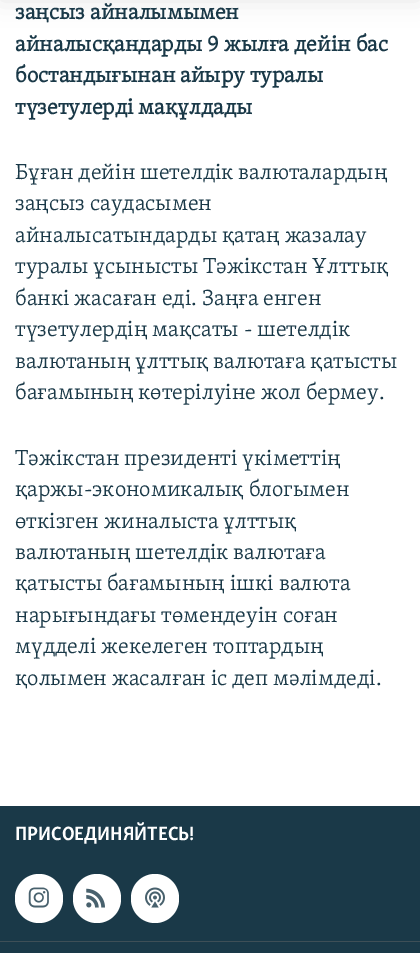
%!PS
<< /PageSize [420 953] /PageUsesTransparency true >> setpagedevice
/f/fill load def
/C { dup -16 bitshift 255 div exch dup -8 bitshift 255 and 255 div exch 255 and 255 div setrgbcolor } def
/F { [ exch dup neg 0 0 3 -1 roll 0 0 ] selectfont } def
/T { moveto show } def
/R { rectfill } def
/A { dup .setfillconstantalpha .setstrokeconstantalpha } def
/Q { 5 dict begin { /r /h /w /y /x } { exch def } forall
  x r add y moveto x w add y 2 copy h add r arct x w add y h add x 1 index r arct
  x y h add x y r arct x y 2 copy exch w add exch r arct closepath end } def
/S { 12 dict begin { /a /b /q /h /w /y /x } { exch def } forall gsave /was 0 def
  9 -2 -9 { dup b mul 4 div /e exch def 1 sub .425 mul 2.718 exch exp 1 add a .99 .min exch div /now exch def
    1 1 now sub 1 was sub div sub A /was now def
    w h .min e 2 mul add 0 gt { x e sub y e sub w e 2 mul add h e 2 mul add
      q e add b .6 mul add w h .min 2 div e add .min 0 .max Q fill } if } for grestore end } def
/I { 5 dict begin { /h /w /y /x /name } { exch def } forall
  gsave x y translate w h scale
  w h 8 [w 0 0 h 0 0] name (r) file false 3 colorimage grestore end } def
0 .pushpdf14devicefilter
0 953 translate 1 -1 scale
4 setmiterlimit
16#FFFFFF C
0 0 420 953 R
16#000000 C
0 -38 420 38 0 12.5 .1 S
/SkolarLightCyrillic-Bold 22.5 F
16#1A3948 C
(заңсыз айналымымен) 15 19 T
(айналысқандарды 9 жылға дейін бас) 15 51 T
(бостандығынан айыру туралы) 15 82 T
(түзетулерді мақұлдады) 15 114 T
/SkolarLightCyrillic-Light 22.5 F
(Бұған дейін шетелдік валюталардың) 15 179 T
(заңсыз саудасымен) 15 210 T
(айналысатындарды қатаң жазалау) 15 242 T
(туралы ұсынысты Тәжікстан Ұлттық) 15 273 T
(банкі жасаған еді. Заңға енген) 15 305 T
(түзетулердің мақсаты - шетелдік) 15 336 T
(валютаның ұлттық валютаға қатысты) 15 368 T
(бағамының көтерілуіне жол бермеу.) 15 399 T
(Тәжікстан президенті үкіметтің) 15 465 T
(қаржы-экономикалық блогымен) 15 496 T
(өткізген жиналыста ұлттық) 15 528 T
(валютаның шетелдік валютаға) 15 559 T
(қатысты бағамының ішкі валюта) 15 590 T
(нарығындағы төмендеуін соған) 15 622 T
(мүдделі жекелеген топтардың) 15 653 T
(қолымен жасалған іс деп мәлімдеді.) 15 685 T
0 806 420 147 R
/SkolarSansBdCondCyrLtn-Bold 19.75 F
16#FFFFFF C
(ПРИСОЕДИНЯЙТЕСЬ!) 15 840 T
15 874 48 49 24 Q f
(1.rgb) 28 887 21 21 I
73 874 48 49 24 Q f
(2.rgb) 86 888 19 20 I
131 874 48 49 24 Q f
(3.rgb) 145 887 20 21 I
16#3E4F57 C
0 941 420 1 R
.poppdf14devicefilter showpage
